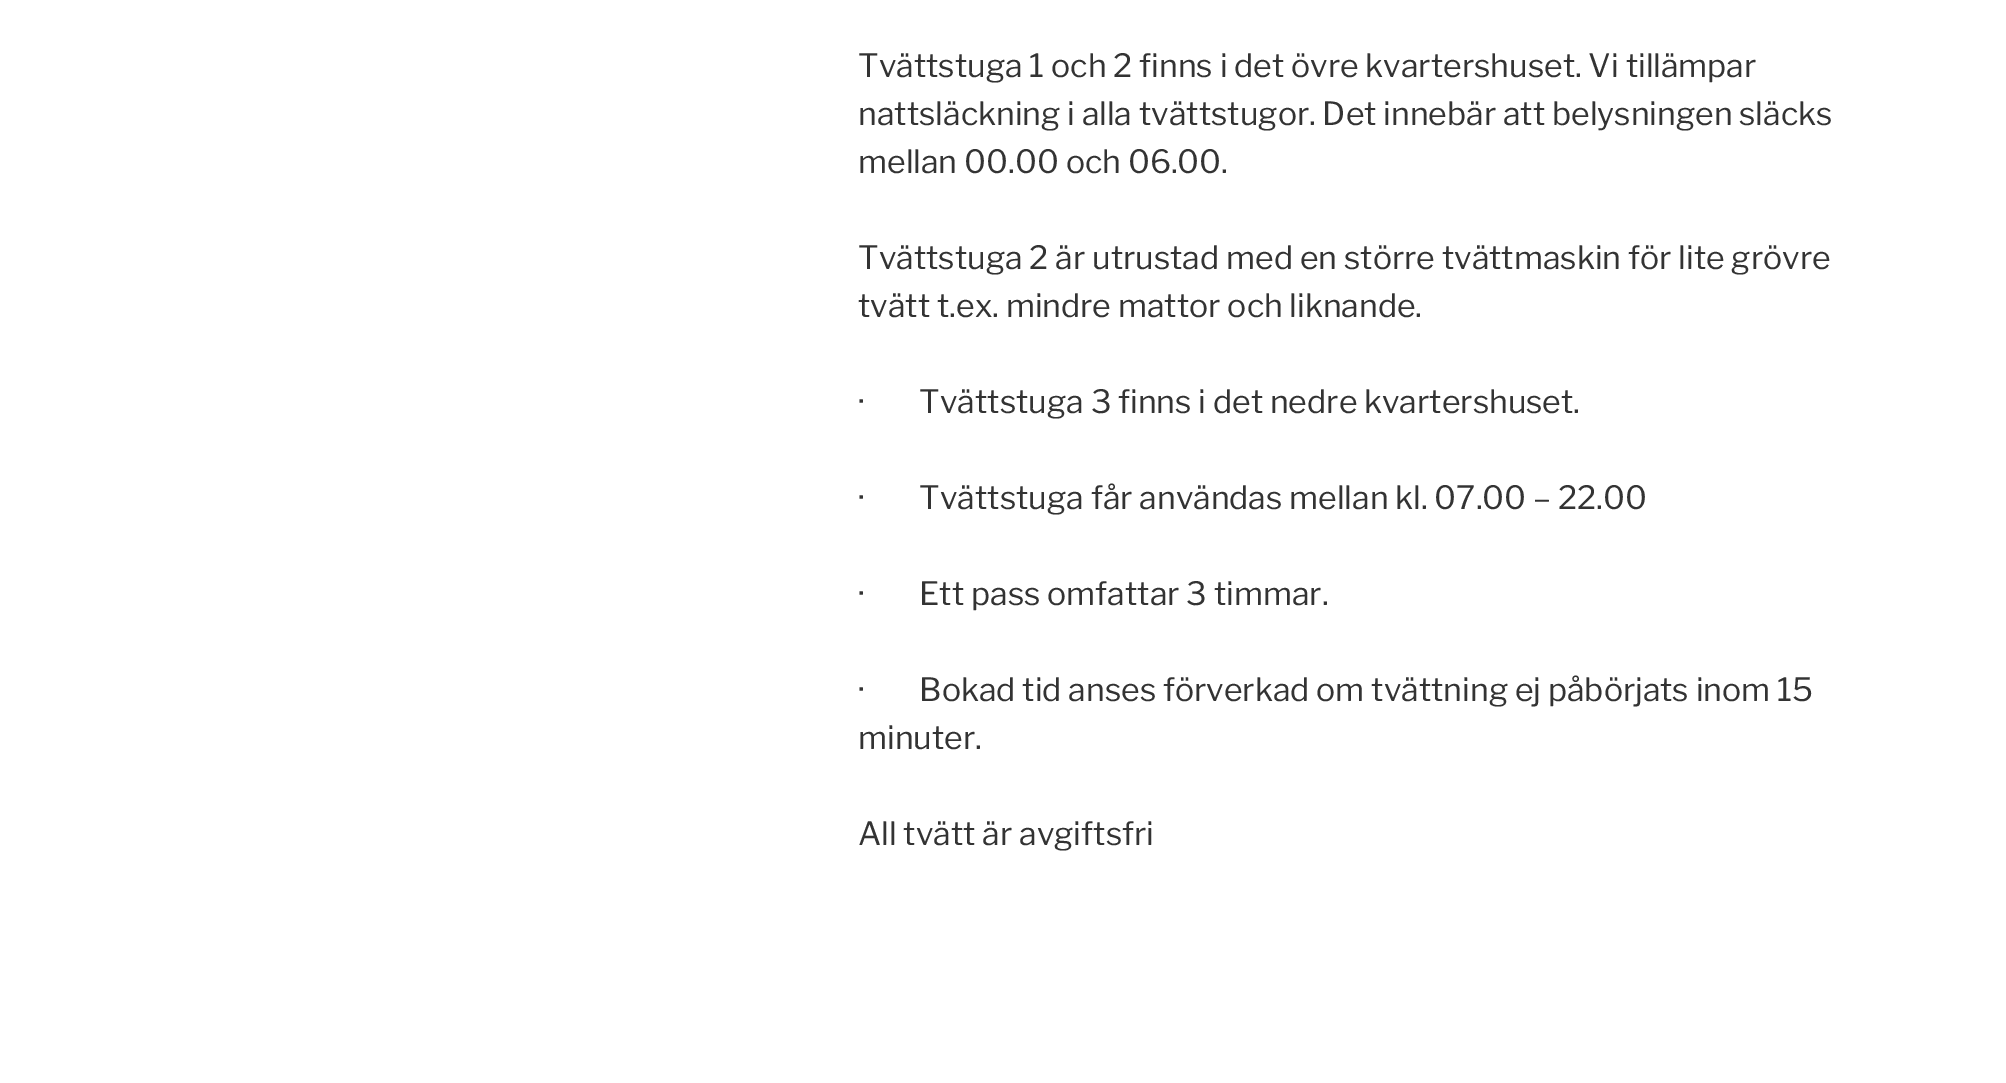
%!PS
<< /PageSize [2006 1083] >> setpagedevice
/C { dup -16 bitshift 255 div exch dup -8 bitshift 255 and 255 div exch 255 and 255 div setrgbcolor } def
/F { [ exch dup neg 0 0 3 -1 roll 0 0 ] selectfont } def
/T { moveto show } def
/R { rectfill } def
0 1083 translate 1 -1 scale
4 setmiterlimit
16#FFFFFF C
0 0 2006 1083 R
/LibreFranklin-Thin 32 F
16#333333 C
(Tvättstuga 1 och 2 finns i det övre kvartershuset. Vi tillämpar) 858 77 T
(nattsläckning i alla tvättstugor. Det innebär att belysningen släcks) 858 125 T
(mellan 00.00 och 06.00.) 858 173 T
(Tvättstuga 2 är utrustad med en större tvättmaskin för lite grövre) 858 269 T
(tvätt t.ex. mindre mattor och liknande.) 858 317 T
(·        Tvättstuga 3 finns i det nedre kvartershuset.) 858 413 T
(·        Tvättstuga får användas mellan kl. 07.00 – 22.00) 858 509 T
(·        Ett pass omfattar 3 timmar.) 858 605 T
(·        Bokad tid anses förverkad om tvättning ej påbörjats inom 15) 858 701 T
(minuter.) 858 749 T
(All tvätt är avgiftsfri) 858 845 T
showpage
